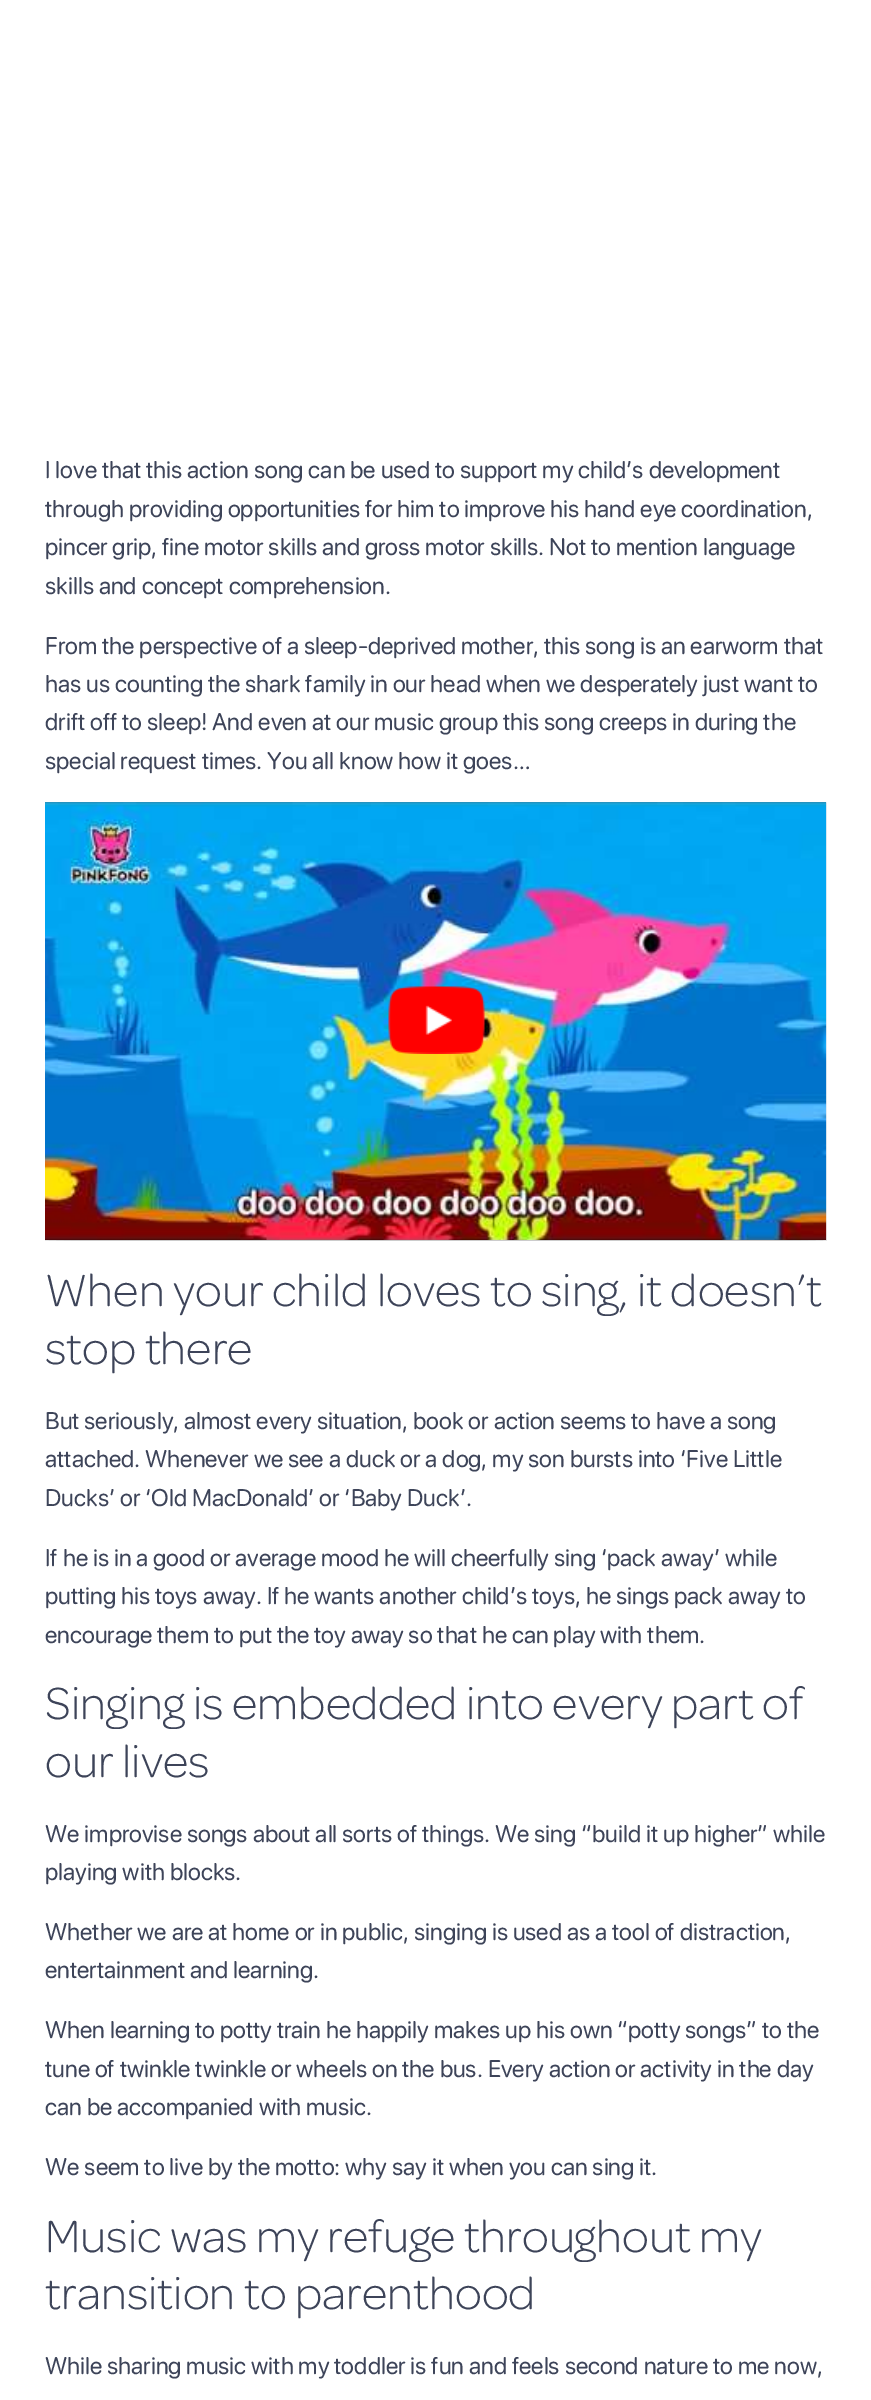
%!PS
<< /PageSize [871 2400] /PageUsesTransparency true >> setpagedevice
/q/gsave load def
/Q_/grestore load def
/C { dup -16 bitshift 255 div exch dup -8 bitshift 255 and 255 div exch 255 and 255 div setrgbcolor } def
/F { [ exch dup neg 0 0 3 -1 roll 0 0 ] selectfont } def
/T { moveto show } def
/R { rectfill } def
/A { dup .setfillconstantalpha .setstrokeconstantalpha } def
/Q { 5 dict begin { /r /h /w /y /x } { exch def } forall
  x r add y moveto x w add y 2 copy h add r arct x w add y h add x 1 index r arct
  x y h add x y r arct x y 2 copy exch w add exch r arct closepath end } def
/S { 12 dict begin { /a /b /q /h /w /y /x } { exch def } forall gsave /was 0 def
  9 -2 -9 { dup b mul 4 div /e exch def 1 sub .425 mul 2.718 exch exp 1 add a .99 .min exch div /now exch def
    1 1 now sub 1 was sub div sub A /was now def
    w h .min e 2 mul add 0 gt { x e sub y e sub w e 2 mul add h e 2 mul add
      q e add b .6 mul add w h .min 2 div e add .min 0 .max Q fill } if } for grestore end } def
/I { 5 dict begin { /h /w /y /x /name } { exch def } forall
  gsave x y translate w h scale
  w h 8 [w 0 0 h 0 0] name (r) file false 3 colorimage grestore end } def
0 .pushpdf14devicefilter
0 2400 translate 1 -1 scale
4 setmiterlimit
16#FFFFFF C
0 0 871 2400 R
/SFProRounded-Regular 24 F
16#3D4459 C
(I love that this action song can be used to support my child’s development) 45 478 T
(through providing opportunities for him to improve his hand eye coordination,) 45 517 T
(pincer grip, fine motor skills and gross motor skills. Not to mention language) 45 555 T
(skills and concept comprehension.) 45 594 T
(From the perspective of a sleep-deprived mother, this song is an earworm that) 45 654 T
(has us counting the shark family in our head when we desperately just want to) 45 692 T
(drift off to sleep! And even at our music group this song creeps in during the) 45 730 T
(special request times. You all know how it goes…) 45 769 T
q
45 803 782 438 rectclip
16#000000 C
45 729 782 585 23 15 .2 S
Q_
(1.rgb) 45 802 782 438 I
(2.rgb) 388 986 97 68 I
/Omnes-Light 48 F
(When your child loves to sing, it doesn’t) 45 1306 T
(stop there) 45 1364 T
/SFProRounded-Regular 24 F
(But seriously, almost every situation, book or action seems to have a song) 45 1429 T
(attached. Whenever we see a duck or a dog, my son bursts into ‘Five Little) 45 1467 T
(Ducks’ or ‘Old MacDonald’ or ‘Baby Duck’.) 45 1506 T
(If he is in a good or average mood he will cheerfully sing ‘pack away’ while) 45 1566 T
(putting his toys away. If he wants another child’s toys, he sings pack away to) 45 1604 T
(encourage them to put the toy away so that he can play with them.) 45 1643 T
/Omnes-Light 48 F
(Singing is embedded into every part of) 45 1719 T
(our lives) 45 1777 T
/SFProRounded-Regular 24 F
(We improvise songs about all sorts of things. We sing “build it up higher” while) 45 1842 T
(playing with blocks.) 45 1880 T
(Whether we are at home or in public, singing is used as a tool of distraction,) 45 1940 T
(entertainment and learning.) 45 1978 T
(When learning to potty train he happily makes up his own “potty songs” to the) 45 2038 T
(tune of twinkle twinkle or wheels on the bus. Every action or activity in the day) 45 2077 T
(can be accompanied with music.) 45 2115 T
(We seem to live by the motto: why say it when you can sing it.) 45 2175 T
/Omnes-Light 48 F
(Music was my refuge throughout my) 45 2252 T
(transition to parenthood) 45 2309 T
/SFProRounded-Regular 24 F
(While sharing music with my toddler is fun and feels second nature to me now,) 45 2374 T
.poppdf14devicefilter showpage
